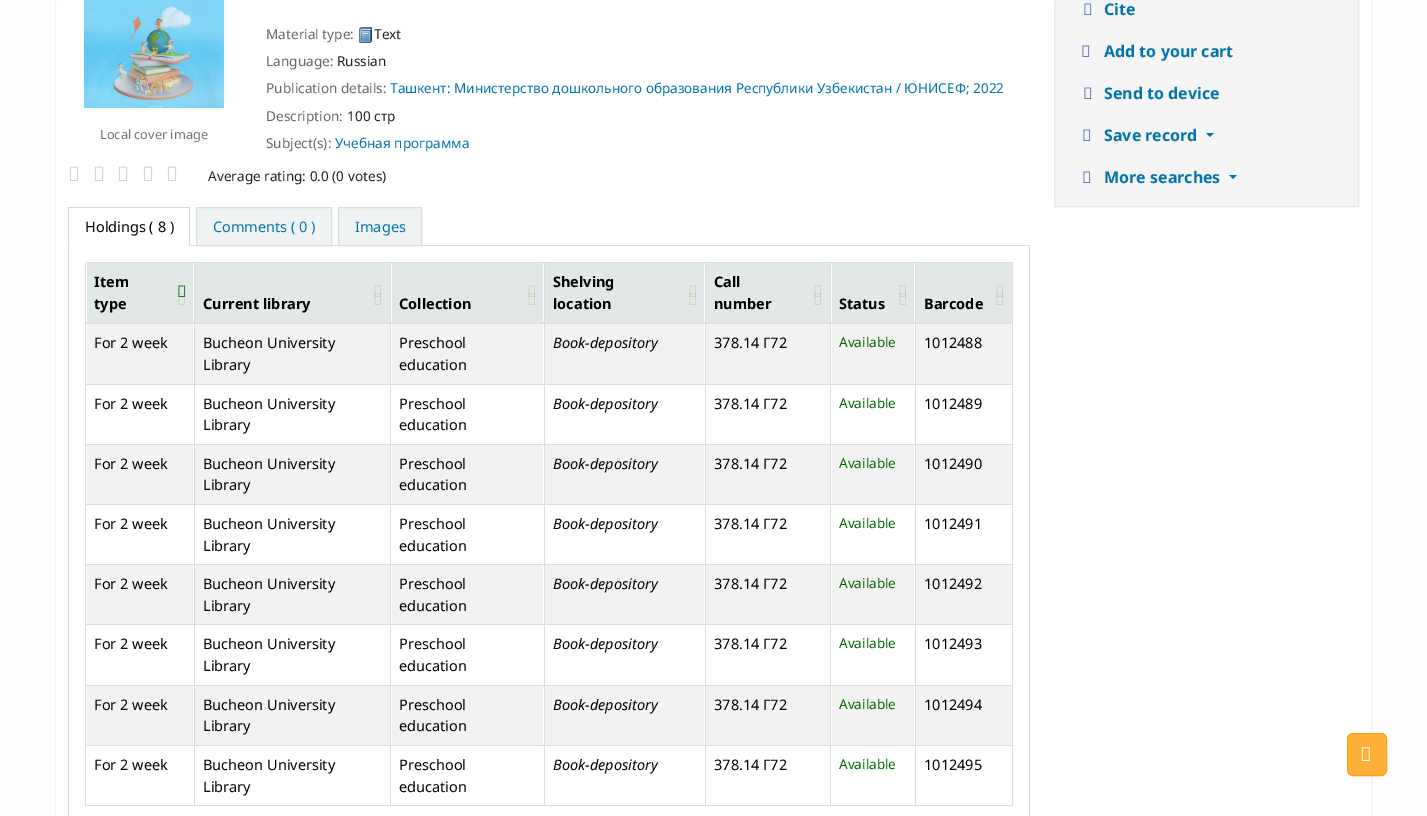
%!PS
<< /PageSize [1427 816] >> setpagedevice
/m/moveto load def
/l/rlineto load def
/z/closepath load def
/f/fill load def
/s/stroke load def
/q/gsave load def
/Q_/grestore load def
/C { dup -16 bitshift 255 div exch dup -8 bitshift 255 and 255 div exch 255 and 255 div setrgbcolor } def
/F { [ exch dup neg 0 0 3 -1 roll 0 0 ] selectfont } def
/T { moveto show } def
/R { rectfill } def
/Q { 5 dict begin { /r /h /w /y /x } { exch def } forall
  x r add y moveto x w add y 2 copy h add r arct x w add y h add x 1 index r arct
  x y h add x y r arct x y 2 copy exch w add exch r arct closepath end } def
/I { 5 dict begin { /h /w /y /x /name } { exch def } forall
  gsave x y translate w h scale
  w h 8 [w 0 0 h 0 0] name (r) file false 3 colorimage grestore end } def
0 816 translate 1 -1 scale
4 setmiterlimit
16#FEFCFC C
0 0 1427 816 R
16#FFFFFF C
55.5 -.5 m 1316 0 l 0 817 l -1316 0 l z q f Q_
16#F0F3F3 C
s
(1.rgb) 84 0 140 108 I
/NotoSans-Regular 12.75 F
16#727272 C
(Local cover image) 100 139 T
/NotoSans-Regular 13.6 F
16#666666 C
(Material type:) 266 39 T
(2.rgb) 359 27 13 16 I
16#202020 C
(Text) 374 39 T
16#666666 C
(Language:) 266 66 T
16#202020 C
(Russian) 337 66 T
16#666666 C
(Publication details:) 266 93 T
16#0074AD C
(Ташкент: Министерство дошкольного образования Республики Узбекистан / ЮНИСЕФ; 2022) 390 93 T
16#666666 C
(Description:) 266 121 T
16#202020 C
(100 стр) 347 121 T
16#666666 C
(Subject\(s\):) 266 148 T
16#0074AD C
(Учебная программа) 335 148 T
(3.rgb) 69 166 10 15 I
(3.rgb) 94 166 10 15 I
(3.rgb) 118 166 10 15 I
(3.rgb) 143 166 10 15 I
(3.rgb) 167 166 10 15 I
16#202020 C
(Average rating: 0.0 \(0 votes\)) 208 181 T
16#DDDDDD C
190 245 840 1 R
16#D8D8D8 C
68 207 122 1 R
190 207 m 0 39 l -1 -1 l 0 -37 l z f
68 246 m 0 -39 l 1 1 l 0 37 l z f
/NotoSans-Regular 14.5 F
16#000000 C
(Holdings \( 8 \)) 85 232 T
16#F0F3F3 C
196.5 207.5 m 135 0 l 0 38 l -135 0 l z q f Q_
16#DDDDDD C
s
16#0074AD C
(Comments \( 0 \)) 213 232 T
16#F0F3F3 C
338.5 207.5 m 83 0 l 0 38 l -83 0 l z q f Q_
16#DDDDDD C
s
16#0074AD C
(Images) 355 232 T
16#D8D8D8 C
1029 246 1 570 R
68 246 1 570 R
16#DDDDDD C
85 262 928 1 R
85 322 830 1 R
16#E2E8E8 C
87 263 106 60 R
/NotoSans-Bold 14.5 F
16#000000 C
(Item) 94 287 T
(type) 94 309 T
(4.rgb) 178 285 8 12 I
(5.rgb) 178 293 7 12 I
16#E2E8E8 C
195 263 195 60 R
16#000000 C
(Current library) 203 309 T
(6.rgb) 374 285 7 12 I
(7.rgb) 374 293 7 12 I
16#E2E8E8 C
392 263 151 60 R
16#000000 C
(Collection) 399 309 T
(6.rgb) 528 285 7 12 I
(7.rgb) 528 293 7 12 I
16#E2E8E8 C
545 263 159 60 R
16#000000 C
(Shelving) 553 287 T
(location) 553 309 T
(6.rgb) 689 285 7 12 I
(7.rgb) 689 293 7 12 I
16#E2E8E8 C
706 263 124 60 R
16#000000 C
(Call) 714 287 T
(number) 714 309 T
(6.rgb) 814 285 7 12 I
(7.rgb) 814 293 7 12 I
16#E2E8E8 C
832 263 82 60 R
16#000000 C
(Status) 839 309 T
(6.rgb) 899 285 7 12 I
(7.rgb) 899 293 7 12 I
16#E2E8E8 C
916 263 96 60 R
16#000000 C
(Barcode) 924 309 T
(6.rgb) 996 285 7 12 I
(7.rgb) 996 293 7 12 I
16#DDDDDD C
85 323 928 1 R
16#F2F2F2 C
87 324 106 60 R
/NotoSans-Regular 14.5 F
16#000000 C
(For 2 week) 94 348 T
16#F2F2F2 C
195 324 195 60 R
16#000000 C
(Bucheon University) 203 348 T
(Library) 203 370 T
16#F2F2F2 C
392 324 151 60 R
16#000000 C
(Preschool) 399 348 T
(education) 399 370 T
16#F2F2F2 C
545 324 159 60 R
/NotoSans-Italic 14.5 F
16#000000 C
(Book-depository) 553 348 T
16#F2F2F2 C
706 324 124 60 R
/NotoSans-Regular 14.5 F
16#000000 C
(378.14 Г72) 714 348 T
16#F2F2F2 C
832 324 82 60 R
/NotoSans-Regular 13.5 F
16#006600 C
(Available) 839 347 T
16#F2F2F2 C
916 324 96 60 R
/NotoSans-Regular 14.5 F
16#000000 C
(1012488) 924 348 T
16#DDDDDD C
85 384 928 1 R
16#000000 C
(For 2 week) 94 409 T
(Bucheon University) 203 409 T
(Library) 203 430 T
(Preschool) 399 409 T
(education) 399 430 T
/NotoSans-Italic 14.5 F
(Book-depository) 553 409 T
/NotoSans-Regular 14.5 F
(378.14 Г72) 714 409 T
/NotoSans-Regular 13.5 F
16#006600 C
(Available) 839 408 T
/NotoSans-Regular 14.5 F
16#000000 C
(1012489) 924 409 T
16#DDDDDD C
85 444 928 1 R
16#F2F2F2 C
87 445 106 59 R
16#000000 C
(For 2 week) 94 469 T
16#F2F2F2 C
195 445 195 59 R
16#000000 C
(Bucheon University) 203 469 T
(Library) 203 490 T
16#F2F2F2 C
392 445 151 59 R
16#000000 C
(Preschool) 399 469 T
(education) 399 490 T
16#F2F2F2 C
545 445 159 59 R
/NotoSans-Italic 14.5 F
16#000000 C
(Book-depository) 553 469 T
16#F2F2F2 C
706 445 124 59 R
/NotoSans-Regular 14.5 F
16#000000 C
(378.14 Г72) 714 469 T
16#F2F2F2 C
832 445 82 59 R
/NotoSans-Regular 13.5 F
16#006600 C
(Available) 839 468 T
16#F2F2F2 C
916 445 96 59 R
/NotoSans-Regular 14.5 F
16#000000 C
(1012490) 924 469 T
16#DDDDDD C
85 504 928 1 R
16#000000 C
(For 2 week) 94 529 T
(Bucheon University) 203 529 T
(Library) 203 551 T
(Preschool) 399 529 T
(education) 399 551 T
/NotoSans-Italic 14.5 F
(Book-depository) 553 529 T
/NotoSans-Regular 14.5 F
(378.14 Г72) 714 529 T
/NotoSans-Regular 13.5 F
16#006600 C
(Available) 839 528 T
/NotoSans-Regular 14.5 F
16#000000 C
(1012491) 924 529 T
16#DDDDDD C
85 564 928 1 R
16#F2F2F2 C
87 565 106 59 R
16#000000 C
(For 2 week) 94 589 T
16#F2F2F2 C
195 565 195 59 R
16#000000 C
(Bucheon University) 203 589 T
(Library) 203 611 T
16#F2F2F2 C
392 565 151 59 R
16#000000 C
(Preschool) 399 589 T
(education) 399 611 T
16#F2F2F2 C
545 565 159 59 R
/NotoSans-Italic 14.5 F
16#000000 C
(Book-depository) 553 589 T
16#F2F2F2 C
706 565 124 59 R
/NotoSans-Regular 14.5 F
16#000000 C
(378.14 Г72) 714 589 T
16#F2F2F2 C
832 565 82 59 R
/NotoSans-Regular 13.5 F
16#006600 C
(Available) 839 588 T
16#F2F2F2 C
916 565 96 59 R
/NotoSans-Regular 14.5 F
16#000000 C
(1012492) 924 589 T
16#DDDDDD C
85 624 928 1 R
16#000000 C
(For 2 week) 94 649 T
(Bucheon University) 203 649 T
(Library) 203 671 T
(Preschool) 399 649 T
(education) 399 671 T
/NotoSans-Italic 14.5 F
(Book-depository) 553 649 T
/NotoSans-Regular 14.5 F
(378.14 Г72) 714 649 T
/NotoSans-Regular 13.5 F
16#006600 C
(Available) 839 648 T
/NotoSans-Regular 14.5 F
16#000000 C
(1012493) 924 649 T
16#DDDDDD C
85 685 928 1 R
16#F2F2F2 C
87 686 106 59 R
16#000000 C
(For 2 week) 94 710 T
16#F2F2F2 C
195 686 195 59 R
16#000000 C
(Bucheon University) 203 710 T
(Library) 203 731 T
16#F2F2F2 C
392 686 151 59 R
16#000000 C
(Preschool) 399 710 T
(education) 399 731 T
16#F2F2F2 C
545 686 159 59 R
/NotoSans-Italic 14.5 F
16#000000 C
(Book-depository) 553 710 T
16#F2F2F2 C
706 686 124 59 R
/NotoSans-Regular 14.5 F
16#000000 C
(378.14 Г72) 714 710 T
16#F2F2F2 C
832 686 82 59 R
/NotoSans-Regular 13.5 F
16#006600 C
(Available) 839 709 T
16#F2F2F2 C
916 686 96 59 R
/NotoSans-Regular 14.5 F
16#000000 C
(1012494) 924 710 T
16#DDDDDD C
85 745 928 1 R
85 805 928 1 R
85 262 1 544 R
16#000000 C
(For 2 week) 94 770 T
16#DDDDDD C
194 262 1 544 R
16#000000 C
(Bucheon University) 203 770 T
(Library) 203 792 T
16#DDDDDD C
390 262 1 544 R
16#000000 C
(Preschool) 399 770 T
(education) 399 792 T
16#DDDDDD C
544 262 1 544 R
/NotoSans-Italic 14.5 F
16#000000 C
(Book-depository) 553 770 T
16#DDDDDD C
705 262 1 544 R
/NotoSans-Regular 14.5 F
16#000000 C
(378.14 Г72) 714 770 T
16#DDDDDD C
830 262 1 544 R
/NotoSans-Regular 13.5 F
16#006600 C
(Available) 839 769 T
16#DDDDDD C
1012 262 1 544 R
915 262 1 544 R
/NotoSans-Regular 14.5 F
16#000000 C
(1012495) 924 770 T
16#F5F5F5 C
1054.5 -.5 m 304 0 l 0 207 l -304 0 l z q f Q_
16#E8E8E8 C
s
(8.rgb) 1084 3 8 12 I
/NotoSans-Bold 16 F
16#0074AD C
(Cite) 1104 15 T
(8.rgb) 1082 45 8 12 I
(Add to your cart) 1104 57 T
(8.rgb) 1084 87 8 12 I
(Send to device) 1104 99 T
(8.rgb) 1083 129 8 12 I
(Save record) 1104 141 T
1206 133 m 8 0 l -4 4 l z f
(8.rgb) 1083 171 8 12 I
(More searches) 1104 183 T
1229 175 m 8 0 l -4 4 l z f
16#FFB039 C
1347.5 733.5 39 42 5.5 Q q f Q_
16#FC9F14 C
s
(9.rgb) 1361 747 9 14 I
showpage
